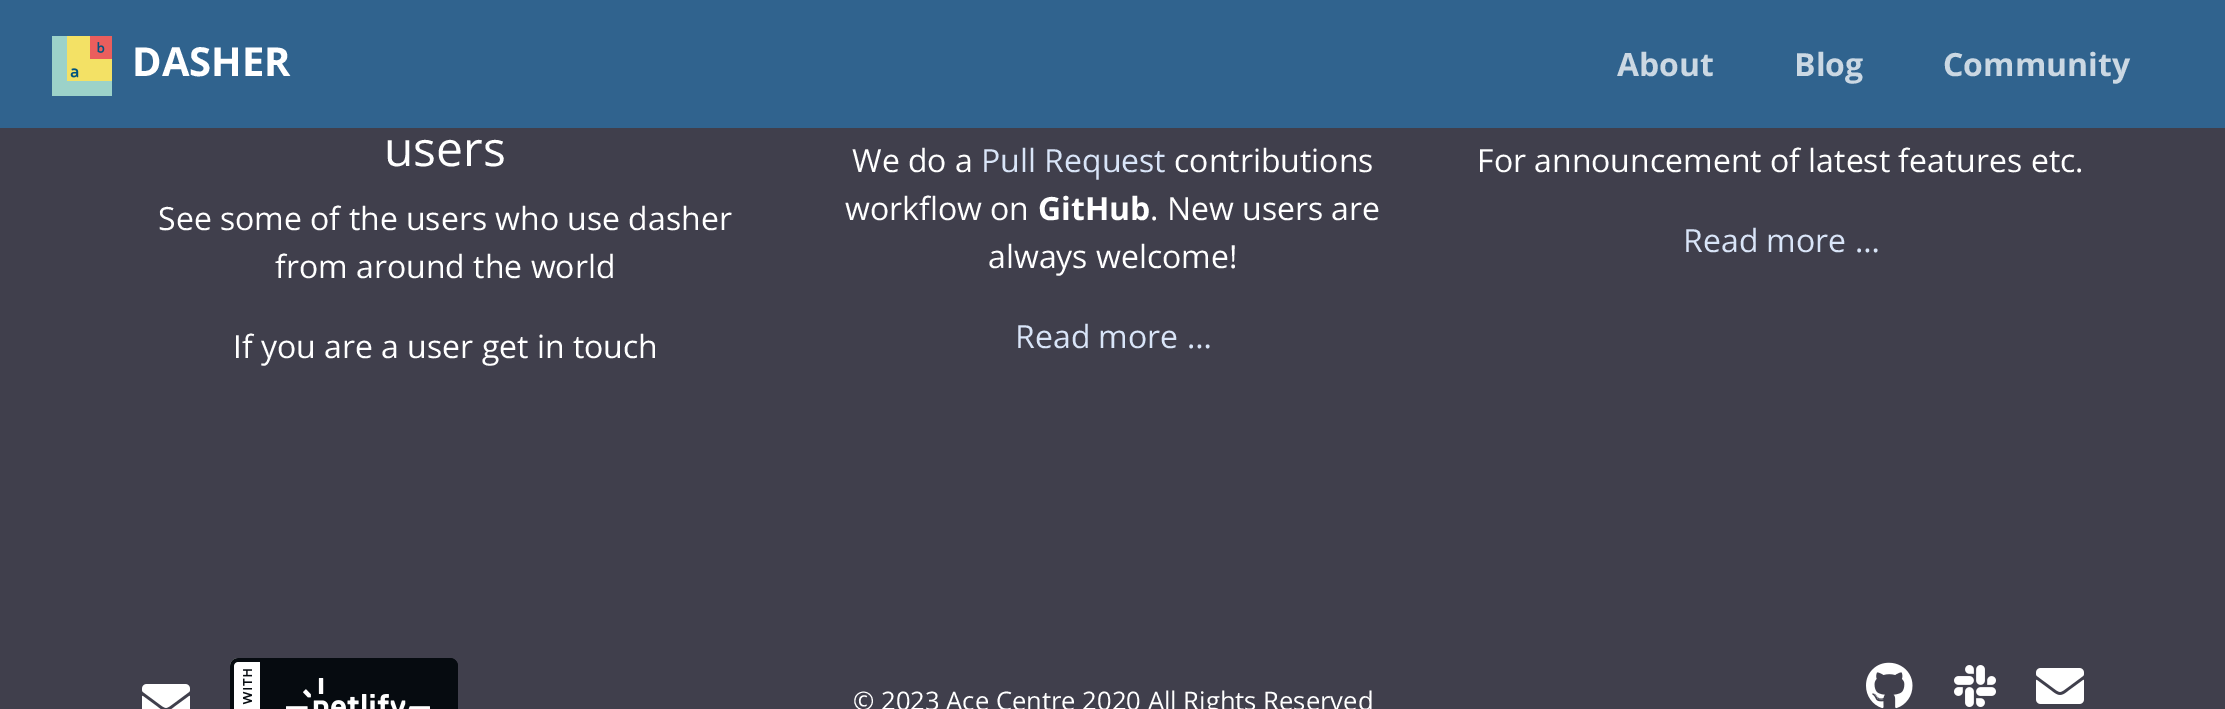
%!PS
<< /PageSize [2225 709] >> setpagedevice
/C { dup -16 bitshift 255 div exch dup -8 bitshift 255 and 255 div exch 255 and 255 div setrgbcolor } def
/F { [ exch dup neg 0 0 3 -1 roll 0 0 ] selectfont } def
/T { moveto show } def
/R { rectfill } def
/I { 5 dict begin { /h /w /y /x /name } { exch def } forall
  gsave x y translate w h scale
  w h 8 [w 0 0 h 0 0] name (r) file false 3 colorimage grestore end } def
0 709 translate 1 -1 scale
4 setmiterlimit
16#403F4C C
0 0 2225 709 R
16#30638E C
0 0 2225 128 R
(1.rgb) 52 36 60 60 I
/OpenSans-Bold 40 F
16#FFFFFF C
(DASHER) 132 76 T
/OpenSans-Bold 32 F
16#CBD8E3 C
(About) 1617 76 T
(Blog) 1794 76 T
(Community) 1943 76 T
/OpenSans-Regular 48 F
16#FFFFFF C
(users) 384 166 T
/OpenSans-Regular 32 F
(See some of the users who use dasher) 158 230 T
(from around the world) 275 278 T
(If you are a user get in touch) 233 358 T
(We do a) 852 172 T
16#D9E5F8 C
(Pull Request) 981 172 T
16#FFFFFF C
(contributions) 1174 172 T
(workflow on) 845 220 T
/OpenSans-Bold 32 F
(GitHub) 1038 220 T
/OpenSans-Regular 32 F
(. New users are) 1150 220 T
(always welcome!) 988 268 T
16#D9E5F8 C
(Read more …) 1015 348 T
16#FFFFFF C
(For announcement of latest features etc.) 1477 172 T
16#D9E5F8 C
(Read more …) 1683 252 T
(2.rgb) 142 684 48 25 I
(3.rgb) 230 658 228 51 I
/OpenSans-Regular 25.6 F
16#FFFFFF C
(© 2023 Ace Centre 2020 All Rights Reserved) 853 710 T
(4.rgb) 1866 662 47 47 I
(5.rgb) 1954 665 42 42 I
(6.rgb) 2036 668 48 36 I
showpage
